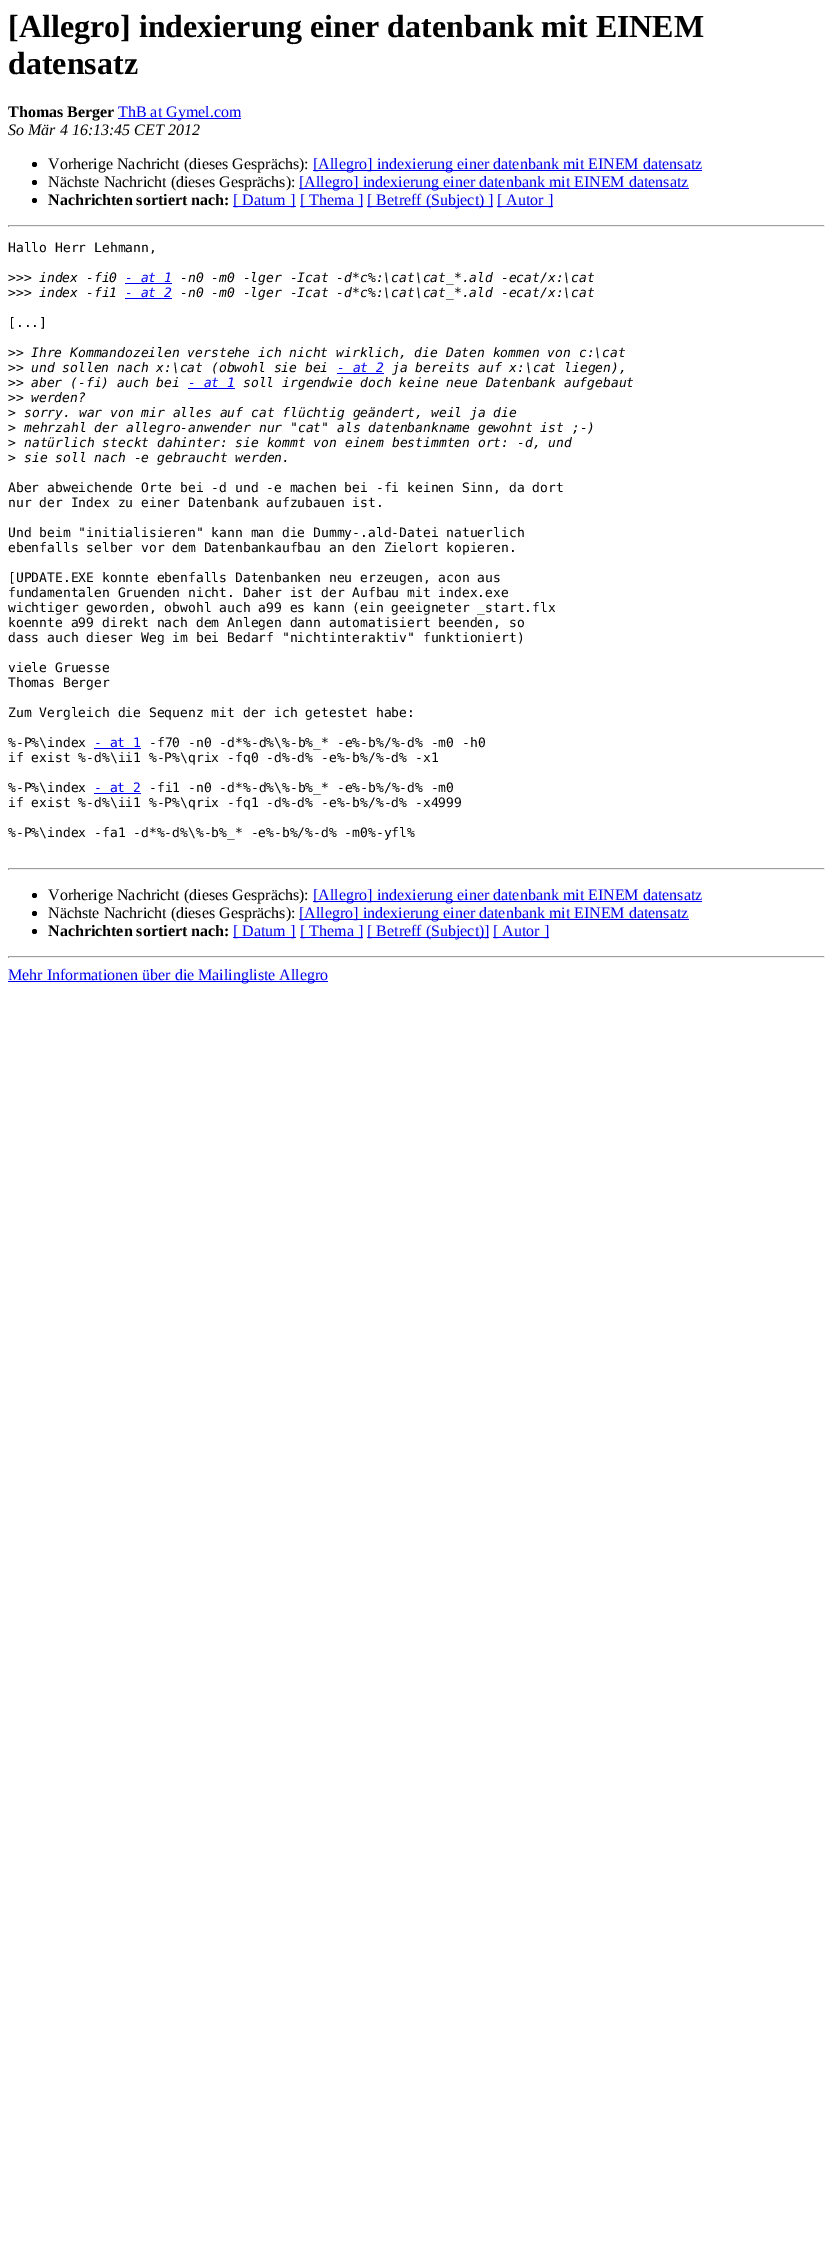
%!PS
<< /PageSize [833 2241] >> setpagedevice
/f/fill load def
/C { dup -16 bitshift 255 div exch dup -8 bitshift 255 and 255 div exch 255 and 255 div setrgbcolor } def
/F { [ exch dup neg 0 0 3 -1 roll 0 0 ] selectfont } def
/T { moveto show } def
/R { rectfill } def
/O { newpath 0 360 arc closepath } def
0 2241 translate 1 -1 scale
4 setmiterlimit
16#FFFFFF C
0 0 833 2241 R
/LiberationSerif-Bold 32 F
16#000000 C
([Allegro] indexierung einer datenbank mit EINEM) 8 37 T
(datensatz) 8 74 T
/LiberationSerif-Bold 16 F
(Thomas Berger) 8 117 T
16#0000EE C
118 118 123 1 R
/LiberationSerif-Regular 16 F
(ThB at Gymel.com) 118 117 T
/LiberationSerif-Italic 16 F
16#000000 C
(So Mär 4 16:13:45 CET 2012) 8 135 T
34.5 164.5 2.5 O f
/LiberationSerif-Regular 16 F
(Vorherige Nachricht \(dieses Gesprächs\):) 48 169 T
16#0000EE C
313 170 389 1 R
([Allegro] indexierung einer datenbank mit EINEM datensatz) 313 169 T
16#000000 C
34.5 182.5 2.5 O f
(Nächste Nachricht \(dieses Gesprächs\):) 48 187 T
16#0000EE C
299 188 390 1 R
([Allegro] indexierung einer datenbank mit EINEM datensatz) 299 187 T
16#000000 C
34.5 200.5 2.5 O f
/LiberationSerif-Bold 16 F
(Nachrichten sortiert nach:) 48 205 T
16#0000EE C
233 206 63 1 R
/LiberationSerif-Regular 16 F
([ Datum ]) 233 205 T
300 206 63 1 R
([ Thema ]) 300 205 T
367 206 126 1 R
([ Betreff \(Subject\) ]) 367 205 T
497 206 56 1 R
([ Autor ]) 497 205 T
16#9F9F9F C
8 225 817 1 R
16#EEEEEE C
824 225 1 2 R
8 226 817 1 R
16#9F9F9F C
8 225 1 2 R
/DejaVuSansMono-Regular 13 F
16#000000 C
(Hallo Herr Lehmann,) 8 252 T
(>>>) 8 282 T
/DejaVuSansMono-Italic 13 F
(index -fi0) 39 282 T
16#0000EE C
(- at 1) 125 282 T
125 283 47 1 R
16#000000 C
(-n0 -m0 -lger -Icat -d*c%:\\cat\\cat_*.ald -ecat/x:\\cat) 180 282 T
/DejaVuSansMono-Regular 13 F
(>>>) 8 297 T
/DejaVuSansMono-Italic 13 F
(index -fi1) 39 297 T
16#0000EE C
(- at 2) 125 297 T
125 298 47 1 R
16#000000 C
(-n0 -m0 -lger -Icat -d*c%:\\cat\\cat_*.ald -ecat/x:\\cat) 180 297 T
/DejaVuSansMono-Regular 13 F
([...]) 8 327 T
(>>) 8 357 T
/DejaVuSansMono-Italic 13 F
(Ihre Kommandozeilen verstehe ich nicht wirklich, die Daten kommen von c:\\cat) 31 357 T
/DejaVuSansMono-Regular 13 F
(>>) 8 372 T
/DejaVuSansMono-Italic 13 F
(und sollen nach x:\\cat \(obwohl sie bei) 31 372 T
16#0000EE C
(- at 2) 337 372 T
337 373 47 1 R
16#000000 C
(ja bereits auf x:\\cat liegen\),) 392 372 T
/DejaVuSansMono-Regular 13 F
(>>) 8 387 T
/DejaVuSansMono-Italic 13 F
(aber \(-fi\) auch bei) 31 387 T
16#0000EE C
(- at 1) 188 387 T
188 388 47 1 R
16#000000 C
(soll irgendwie doch keine neue Datenbank aufgebaut) 243 387 T
/DejaVuSansMono-Regular 13 F
(>>) 8 402 T
/DejaVuSansMono-Italic 13 F
(werden?) 31 402 T
/DejaVuSansMono-Regular 13 F
(>) 8 417 T
/DejaVuSansMono-Italic 13 F
(sorry. war von mir alles auf cat flüchtig geändert, weil ja die) 24 417 T
/DejaVuSansMono-Regular 13 F
(>) 8 432 T
/DejaVuSansMono-Italic 13 F
(mehrzahl der allegro-anwender nur "cat" als datenbankname gewohnt ist ;-\)) 24 432 T
/DejaVuSansMono-Regular 13 F
(>) 8 447 T
/DejaVuSansMono-Italic 13 F
(natürlich steckt dahinter: sie kommt von einem bestimmten ort: -d, und) 24 447 T
/DejaVuSansMono-Regular 13 F
(>) 8 462 T
/DejaVuSansMono-Italic 13 F
(sie soll nach -e gebraucht werden.) 24 462 T
/DejaVuSansMono-Regular 13 F
(Aber abweichende Orte bei -d und -e machen bei -fi keinen Sinn, da dort) 8 492 T
(nur der Index zu einer Datenbank aufzubauen ist.) 8 507 T
(Und beim "initialisieren" kann man die Dummy-.ald-Datei natuerlich) 8 537 T
(ebenfalls selber vor dem Datenbankaufbau an den Zielort kopieren.) 8 552 T
([UPDATE.EXE konnte ebenfalls Datenbanken neu erzeugen, acon aus) 8 582 T
(fundamentalen Gruenden nicht. Daher ist der Aufbau mit index.exe) 8 597 T
(wichtiger geworden, obwohl auch a99 es kann \(ein geeigneter _start.flx) 8 612 T
(koennte a99 direkt nach dem Anlegen dann automatisiert beenden, so) 8 627 T
(dass auch dieser Weg im bei Bedarf "nichtinteraktiv" funktioniert\)) 8 642 T
(viele Gruesse) 8 672 T
(Thomas Berger) 8 687 T
(Zum Vergleich die Sequenz mit der ich getestet habe:) 8 717 T
(%-P%\\index) 8 747 T
16#0000EE C
(- at 1) 94 747 T
94 748 47 1 R
16#000000 C
(-f70 -n0 -d*%-d%\\%-b%_* -e%-b%/%-d% -m0 -h0) 149 747 T
(if exist %-d%\\ii1 %-P%\\qrix -fq0 -d%-d% -e%-b%/%-d% -x1) 8 762 T
(%-P%\\index) 8 792 T
16#0000EE C
(- at 2) 94 792 T
94 793 47 1 R
16#000000 C
(-fi1 -n0 -d*%-d%\\%-b%_* -e%-b%/%-d% -m0) 149 792 T
(if exist %-d%\\ii1 %-P%\\qrix -fq1 -d%-d% -e%-b%/%-d% -x4999) 8 807 T
(%-P%\\index -fa1 -d*%-d%\\%-b%_* -e%-b%/%-d% -m0%-yfl%) 8 837 T
16#9F9F9F C
8 868 817 1 R
16#EEEEEE C
824 868 1 2 R
8 869 817 1 R
16#9F9F9F C
8 868 1 2 R
16#000000 C
34.5 895.5 2.5 O f
/LiberationSerif-Regular 16 F
(Vorherige Nachricht \(dieses Gesprächs\):) 48 900 T
16#0000EE C
313 901 389 1 R
([Allegro] indexierung einer datenbank mit EINEM datensatz) 313 900 T
16#000000 C
34.5 913.5 2.5 O f
(Nächste Nachricht \(dieses Gesprächs\):) 48 918 T
16#0000EE C
299 919 390 1 R
([Allegro] indexierung einer datenbank mit EINEM datensatz) 299 918 T
16#000000 C
34.5 931.5 2.5 O f
/LiberationSerif-Bold 16 F
(Nachrichten sortiert nach:) 48 936 T
16#0000EE C
233 937 63 1 R
/LiberationSerif-Regular 16 F
([ Datum ]) 233 936 T
300 937 63 1 R
([ Thema ]) 300 936 T
367 937 122 1 R
([ Betreff \(Subject\)]) 367 936 T
493 937 56 1 R
([ Autor ]) 493 936 T
16#9F9F9F C
8 956 817 1 R
16#EEEEEE C
824 956 1 2 R
8 957 817 1 R
16#9F9F9F C
8 956 1 2 R
16#0000EE C
8 981 320 1 R
(Mehr Informationen über die Mailingliste Allegro) 8 980 T
showpage
